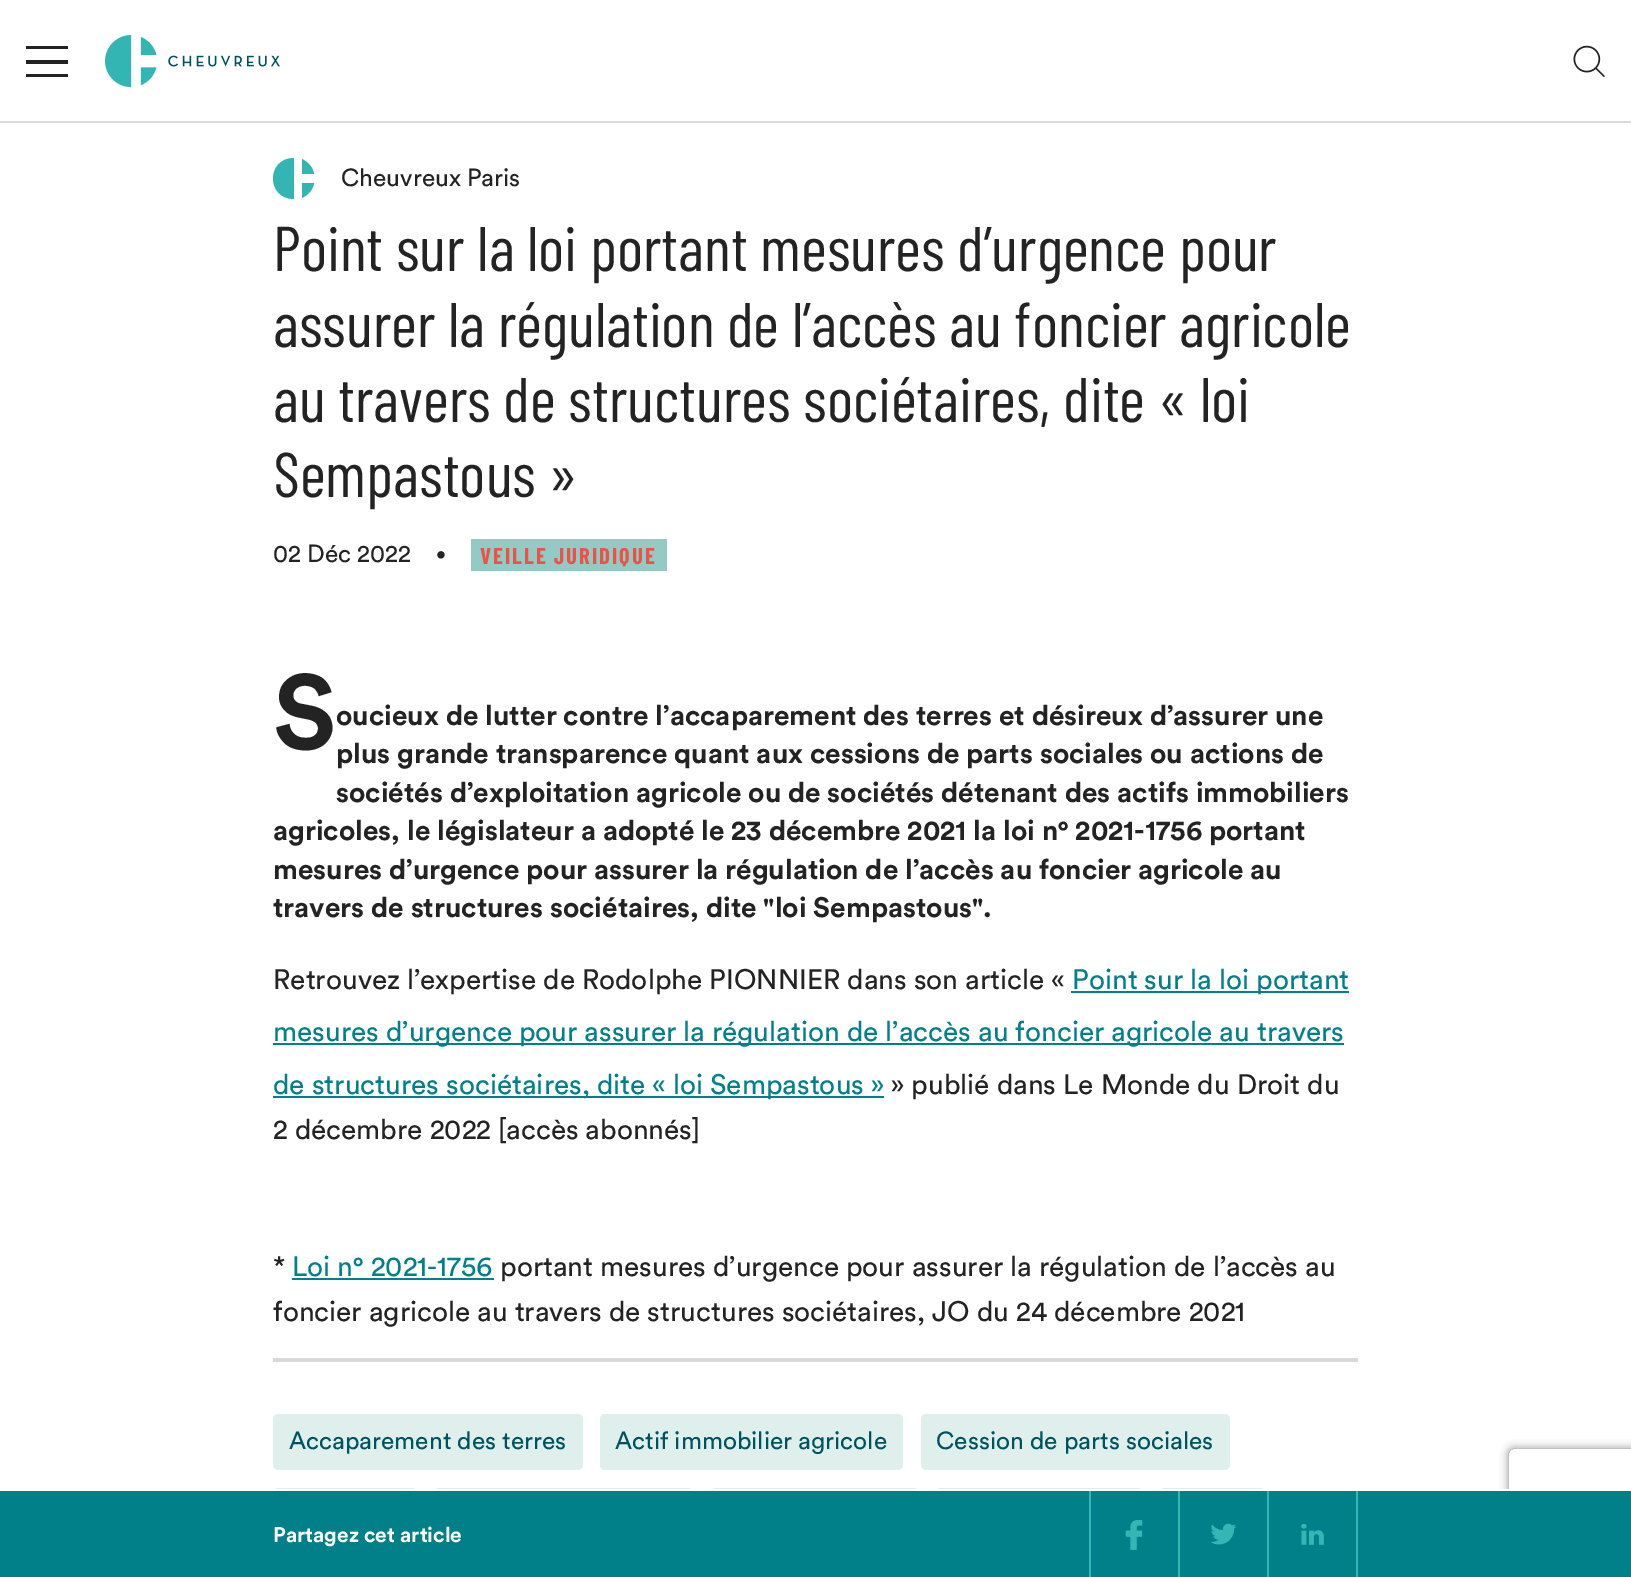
%!PS
<< /PageSize [1631 1577] /PageUsesTransparency true >> setpagedevice
/m/moveto load def
/l/rlineto load def
/c/rcurveto load def
/z/closepath load def
/f/fill load def
/q/gsave load def
/Q_/grestore load def
/C { dup -16 bitshift 255 div exch dup -8 bitshift 255 and 255 div exch 255 and 255 div setrgbcolor } def
/F { [ exch dup neg 0 0 3 -1 roll 0 0 ] selectfont } def
/T { moveto show } def
/R { rectfill } def
/A { dup .setfillconstantalpha .setstrokeconstantalpha } def
/Q { 5 dict begin { /r /h /w /y /x } { exch def } forall
  x r add y moveto x w add y 2 copy h add r arct x w add y h add x 1 index r arct
  x y h add x y r arct x y 2 copy exch w add exch r arct closepath end } def
/S { 12 dict begin { /a /b /q /h /w /y /x } { exch def } forall gsave /was 0 def
  9 -2 -9 { dup b mul 4 div /e exch def 1 sub .425 mul 2.718 exch exp 1 add a .99 .min exch div /now exch def
    1 1 now sub 1 was sub div sub A /was now def
    w h .min e 2 mul add 0 gt { x e sub y e sub w e 2 mul add h e 2 mul add
      q e add b .6 mul add w h .min 2 div e add .min 0 .max Q fill } if } for grestore end } def
/I { 5 dict begin { /h /w /y /x /name } { exch def } forall
  gsave x y translate w h scale
  w h 8 [w 0 0 h 0 0] name (r) file false 3 colorimage grestore end } def
0 .pushpdf14devicefilter
0 1577 translate 1 -1 scale
4 setmiterlimit
16#FFFFFF C
0 0 1631 1577 R
16#D9D9D9 C
0 121 1631 2 R
16#232323 C
26 46 m 42 0 l 0 3 l -42 0 l z 26 60 m 42 0 l 0 4 l -42 0 l z 26 74 m 42 0 l 0 3 l -42 0 l z f
(1.rgb) 105 35 175 53 I
(2.rgb) 1573 45 32 32 I
16#33B5B3 C
294 199 m -28 0 -28 -41 0 -41 c z 314 174 m -1 -7 -6 -12 -12 -15 c 0 15 l z 302 183 m 0 15 l 6 -3 11 -8 12 -15 c z eofill
/Circular-Regular 24.5 F
16#232323 C
(Cheuvreux Paris) 341 186 T
/BarlowCondensed-Regular 63 F
(Point sur la loi portant mesures d’urgence pour) 273 271 T
(assurer la régulation de l’accès au foncier agricole) 273 347 T
(au travers de structures sociétaires, dite « loi) 273 422 T
(Sempastous ») 273 497 T
/Circular-Regular 24.5 F
(02 Déc 2022) 273 562 T
/Circular-Regular 18 F
(•) 436 560 T
16#93CAC4 C
471 539 196 32 R
/BarlowCondensed-Bold 22.75 F
16#EA524A C
480 564 m 2 0 (VEILLE JURIDIQUE) ashow
/Circular-Bold 105 F
16#232323 C
(S) 273 749 T
/Circular-Bold 28 F
(oucieux de lutter contre l’accaparement des terres et désireux d’assurer une) 336 725 T
(plus grande transparence quant aux cessions de parts sociales ou actions de) 336 763 T
(sociétés d’exploitation agricole ou de sociétés détenant des actifs immobiliers) 336 802 T
(agricoles, le législateur a adopté le 23 décembre 2021 la loi n° 2021-1756 portant) 273 840 T
(mesures d’urgence pour assurer la régulation de l’accès au foncier agricole au) 273 879 T
(travers de structures sociétaires, dite "loi Sempastous".) 273 917 T
/Circular-Regular 28 F
(Retrouvez l’expertise de Rodolphe PIONNIER dans son article «) 273 989 T
16#01808A C
1071 991 278 2 R
(Point sur la loi portant) 1072 989 T
273 1043 1071 2 R
(mesures d’urgence pour assurer la régulation de l’accès au foncier agricole au travers) 273 1041 T
273 1096 611 2 R
(de structures sociétaires, dite « loi Sempastous ») 273 1094 T
16#232323 C
(» publié dans Le Monde du Droit du) 891 1094 T
(2 décembre 2022 [accès abonnés]) 273 1139 T
(*) 273 1276 T
16#01808A C
(Loi n° 2021-1756) 292 1276 T
292 1278 202 2 R
16#232323 C
(portant mesures d’urgence pour assurer la régulation de l’accès au) 500 1276 T
(foncier agricole au travers de structures sociétaires, JO du 24 décembre 2021) 273 1321 T
16#D9D9D9 C
273 1358 1085 4 R
16#DEEFEC C
273 1414 310 56 5 Q f
/Circular-Regular 24.5 F
16#005261 C
(Accaparement des terres) 289 1449 T
16#DEEFEC C
600 1414 303 56 5 Q f
16#005261 C
(Actif immobilier agricole) 615 1449 T
16#DEEFEC C
921 1414 309 56 5 Q f
16#005261 C
(Cession de parts sociales) 936 1449 T
16#DEEFEC C
273 1488 144 56 5 Q f
434 1488 259 56 5 Q f
711 1488 208 56 5 Q f
936 1488 207 56 5 Q f
1160 1488 105 56 5 Q f
q
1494 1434 m 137 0 l 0 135 l -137 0 l z 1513 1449 m 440 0 l 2 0 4 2 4 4 c 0 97 l 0 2 -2 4 -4 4 c -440 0 l -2 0 -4 -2 -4 -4 c 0 -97 l 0 -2 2 -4 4 -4 c z eoclip newpath
16#808080 C
1509 1449 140 105 4 4.5 1 S
Q_
16#01808A C
0 1491 1631 86 R
16#FFFFFF C
273 1489 1236 2 R
/Circular-Bold 21 F
(Partagez cet article) 273 1542 T
16#35B5B4 C
1089 1491 2 86 R
(3.rgb) 1125 1520 18 30 I
1178 1491 2 86 R
(4.rgb) 1211 1523 25 22 I
1356 1491 2 86 R
1267 1491 2 86 R
(5.rgb) 1301 1523 23 22 I
.poppdf14devicefilter showpage
